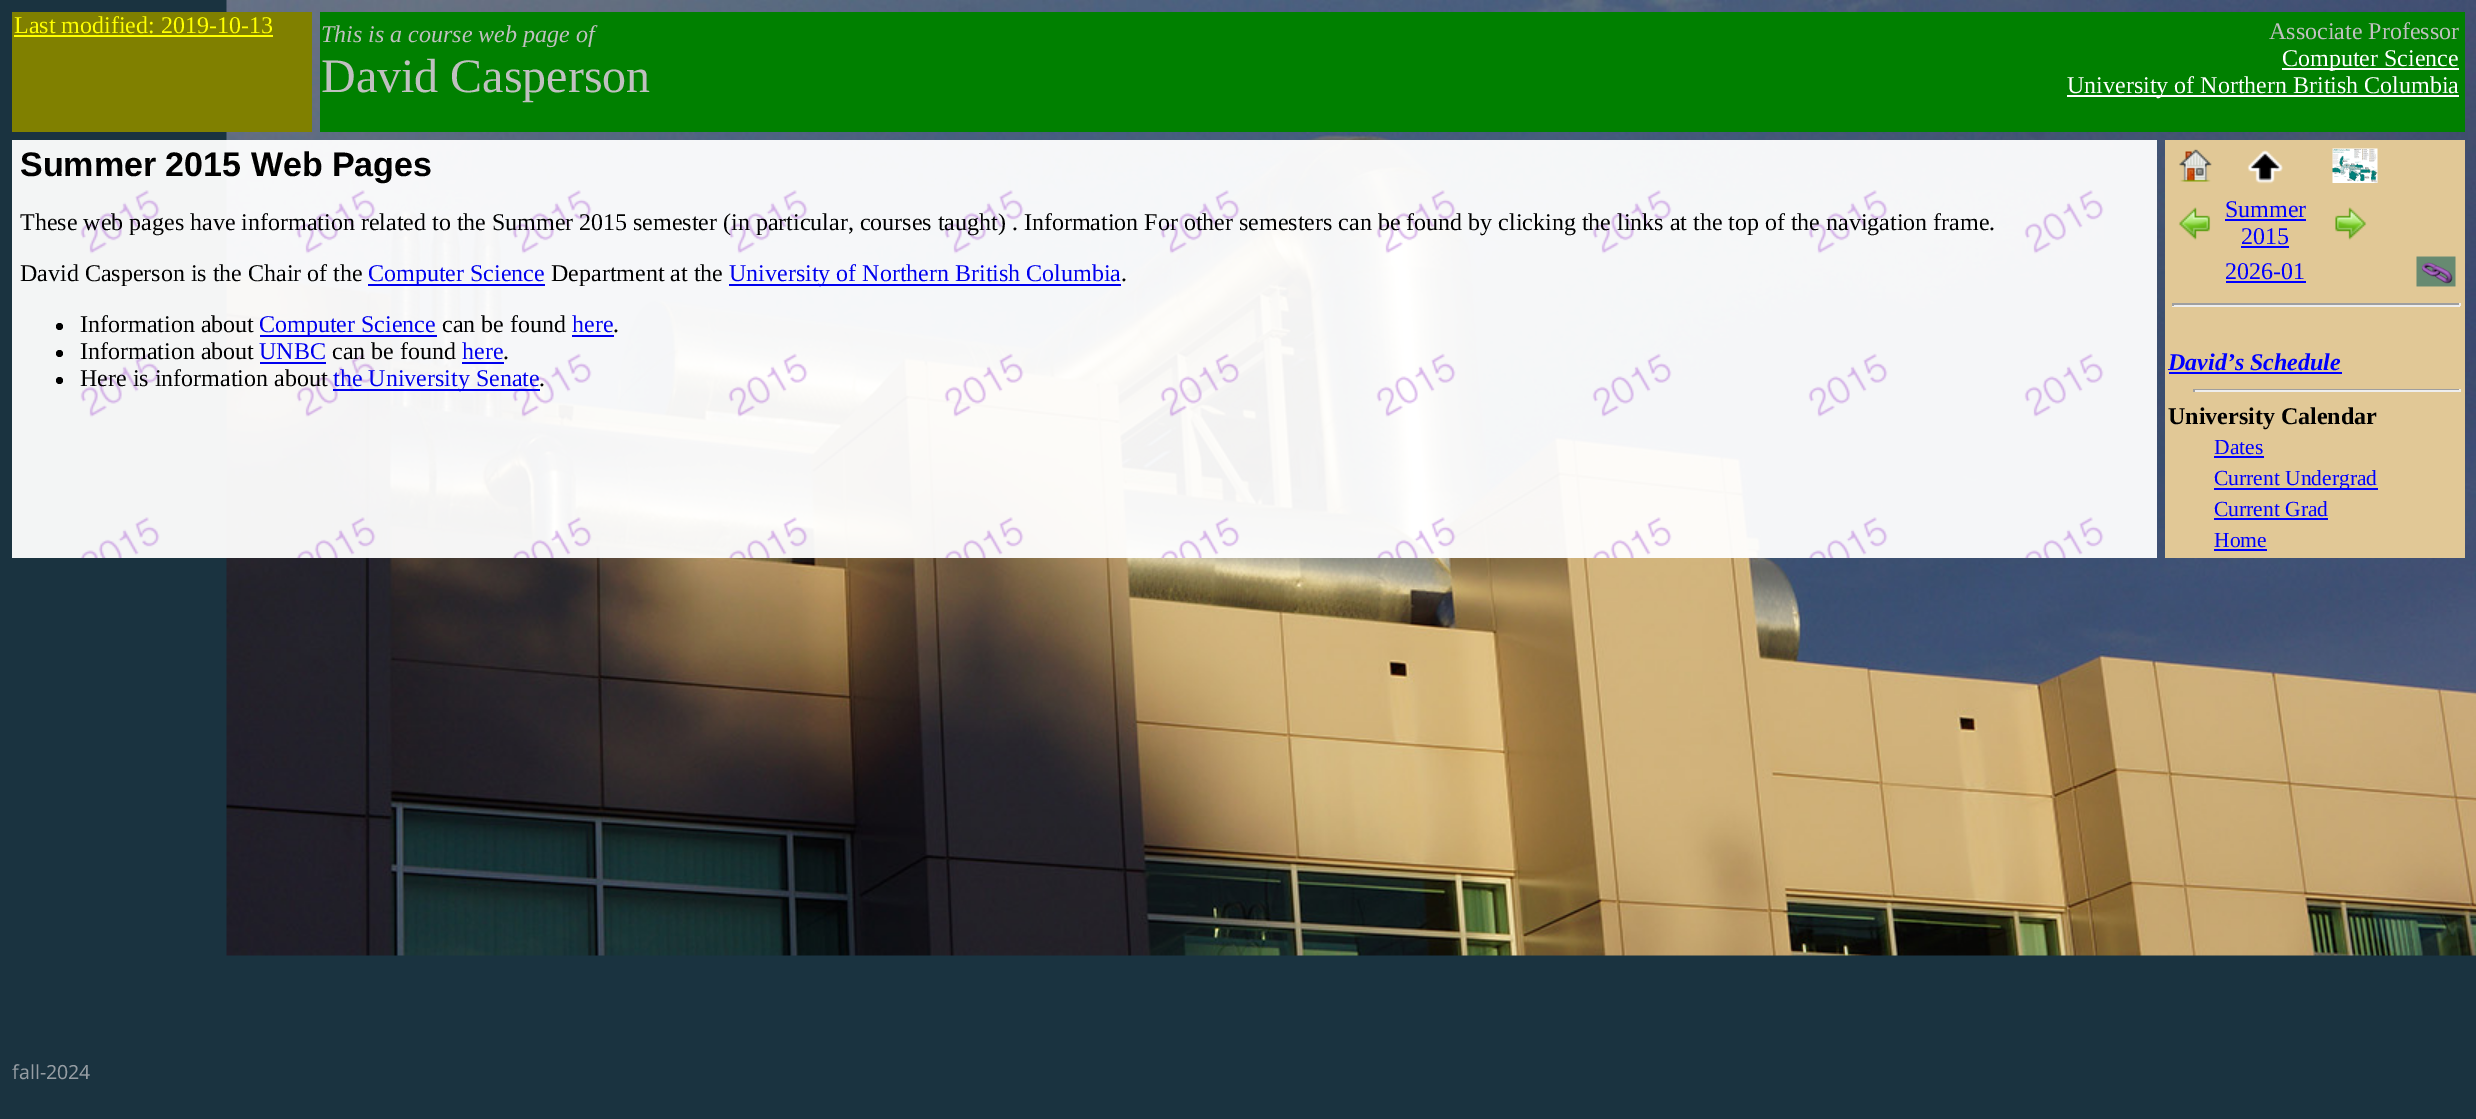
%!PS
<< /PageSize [2476 1119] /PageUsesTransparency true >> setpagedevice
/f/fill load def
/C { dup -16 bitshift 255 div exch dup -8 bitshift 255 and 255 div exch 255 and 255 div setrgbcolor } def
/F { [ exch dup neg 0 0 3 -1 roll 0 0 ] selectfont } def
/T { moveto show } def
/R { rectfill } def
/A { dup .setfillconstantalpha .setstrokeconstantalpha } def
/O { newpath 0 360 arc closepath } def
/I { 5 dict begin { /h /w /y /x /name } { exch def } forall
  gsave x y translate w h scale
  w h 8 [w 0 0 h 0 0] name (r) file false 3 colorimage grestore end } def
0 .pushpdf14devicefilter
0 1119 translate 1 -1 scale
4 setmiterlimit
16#1A3340 C
0 0 2476 1119 R
(1.rgb) 226 0 2250 956 I
16#808000 C
12 12 300 120 R
/LiberationSerif-Regular 24 F
16#FFFF00 C
(Last modified: 2019-10-13) 14 33 T
14 35 259 2 R
16#008000 C
320 12 2145 120 R
/LiberationSerif-Italic 24 F
16#C0C0C0 C
(This is a course web page of) 321 42 T
/LiberationSerif-Regular 48 F
(David Casperson) 321 92 T
/LiberationSerif-Regular 24 F
(Associate Professor) 2269 39 T
16#FFFFFF C
2282 68 177 2 R
(Computer Science) 2282 66 T
2067 95 392 2 R
(University of Northern British Columbia) 2067 93 T
0.95 A
12 140 2145 418 R
1 A
(2.rgb) 80 190 2024 368 I
/LiberationSans-Bold 34 F
16#000000 C
(Summer 2015 Web Pages) 20 176 T
/LiberationSerif-Regular 24 F
(These web pages have information related to the Summer 2015 semester \(in particular, courses taught\) . Information For other semesters can be found by clicking the links at the top of the navigation frame.) 20 230 T
(David Casperson is the Chair of the) 20 281 T
16#0000EE C
368 284 177 2 R
(Computer Science) 368 281 T
16#000000 C
(Department at the) 551 281 T
16#0000EE C
729 284 392 2 R
(University of Northern British Columbia) 729 281 T
16#000000 C
(.) 1121 281 T
59.5 326.5 3.5 O f
(Information about) 80 332 T
16#0000EE C
260 335 177 2 R
(Computer Science) 259 332 T
16#000000 C
(can be found) 442 332 T
16#0000EE C
(here) 572 332 T
572 335 42 2 R
16#000000 C
(.) 613 332 T
59.5 353.5 3.5 O f
(Information about) 80 359 T
16#0000EE C
(UNBC) 259 359 T
260 362 66 2 R
16#000000 C
(can be found) 332 359 T
16#0000EE C
(here) 462 359 T
462 362 42 2 R
16#000000 C
(.) 503 359 T
59.5 380.5 3.5 O f
(Here is information about) 80 386 T
16#0000EE C
333 389 207 2 R
(the University Senate) 333 386 T
16#000000 C
(.) 539 386 T
16#E1C896 C
2165 140 300 418 R
(3.rgb) 2179 149 33 33 I
(4.rgb) 2247 150 36 34 I
(5.rgb) 2332 148 46 35 I
(6.rgb) 2178 207 33 34 I
16#0000FF C
(Summer) 2225 217 T
2225 219 81 2 R
(2015) 2241 244 T
2241 246 48 2 R
(7.rgb) 2335 207 32 34 I
(2026-01) 2225 279 T
2226 281 80 2 R
(8.rgb) 2416 256 40 31 I
16#9F9F9F C
2172 303 288 2 R
16#EEEEEE C
2459 303 2 3 R
2172 305 288 2 R
16#9F9F9F C
2172 303 2 3 R
/LiberationSerif-BoldItalic 24 F
16#0000FF C
(David’s Schedule) 2168 370 T
2169 372 173 2 R
16#9F9F9F C
2193 389 267 1 R
16#EEEEEE C
2459 389 2 3 R
2193 390 267 2 R
16#9F9F9F C
2193 389 2 3 R
/LiberationSerif-Bold 24 F
16#000000 C
(University Calendar) 2168 424 T
/LiberationSerif-Regular 21.5 F
16#0000FF C
(Dates) 2214 454 T
2214 456 50 2 R
2214 488 164 2 R
(Current Undergrad) 2214 485 T
(Current Grad) 2214 516 T
2214 518 114 2 R
(Home) 2214 547 T
2214 549 53 2 R
/NotoSans-Regular 19.5 F
16#969DA3 C
(fall-2024) 12 1079 T
.poppdf14devicefilter showpage
